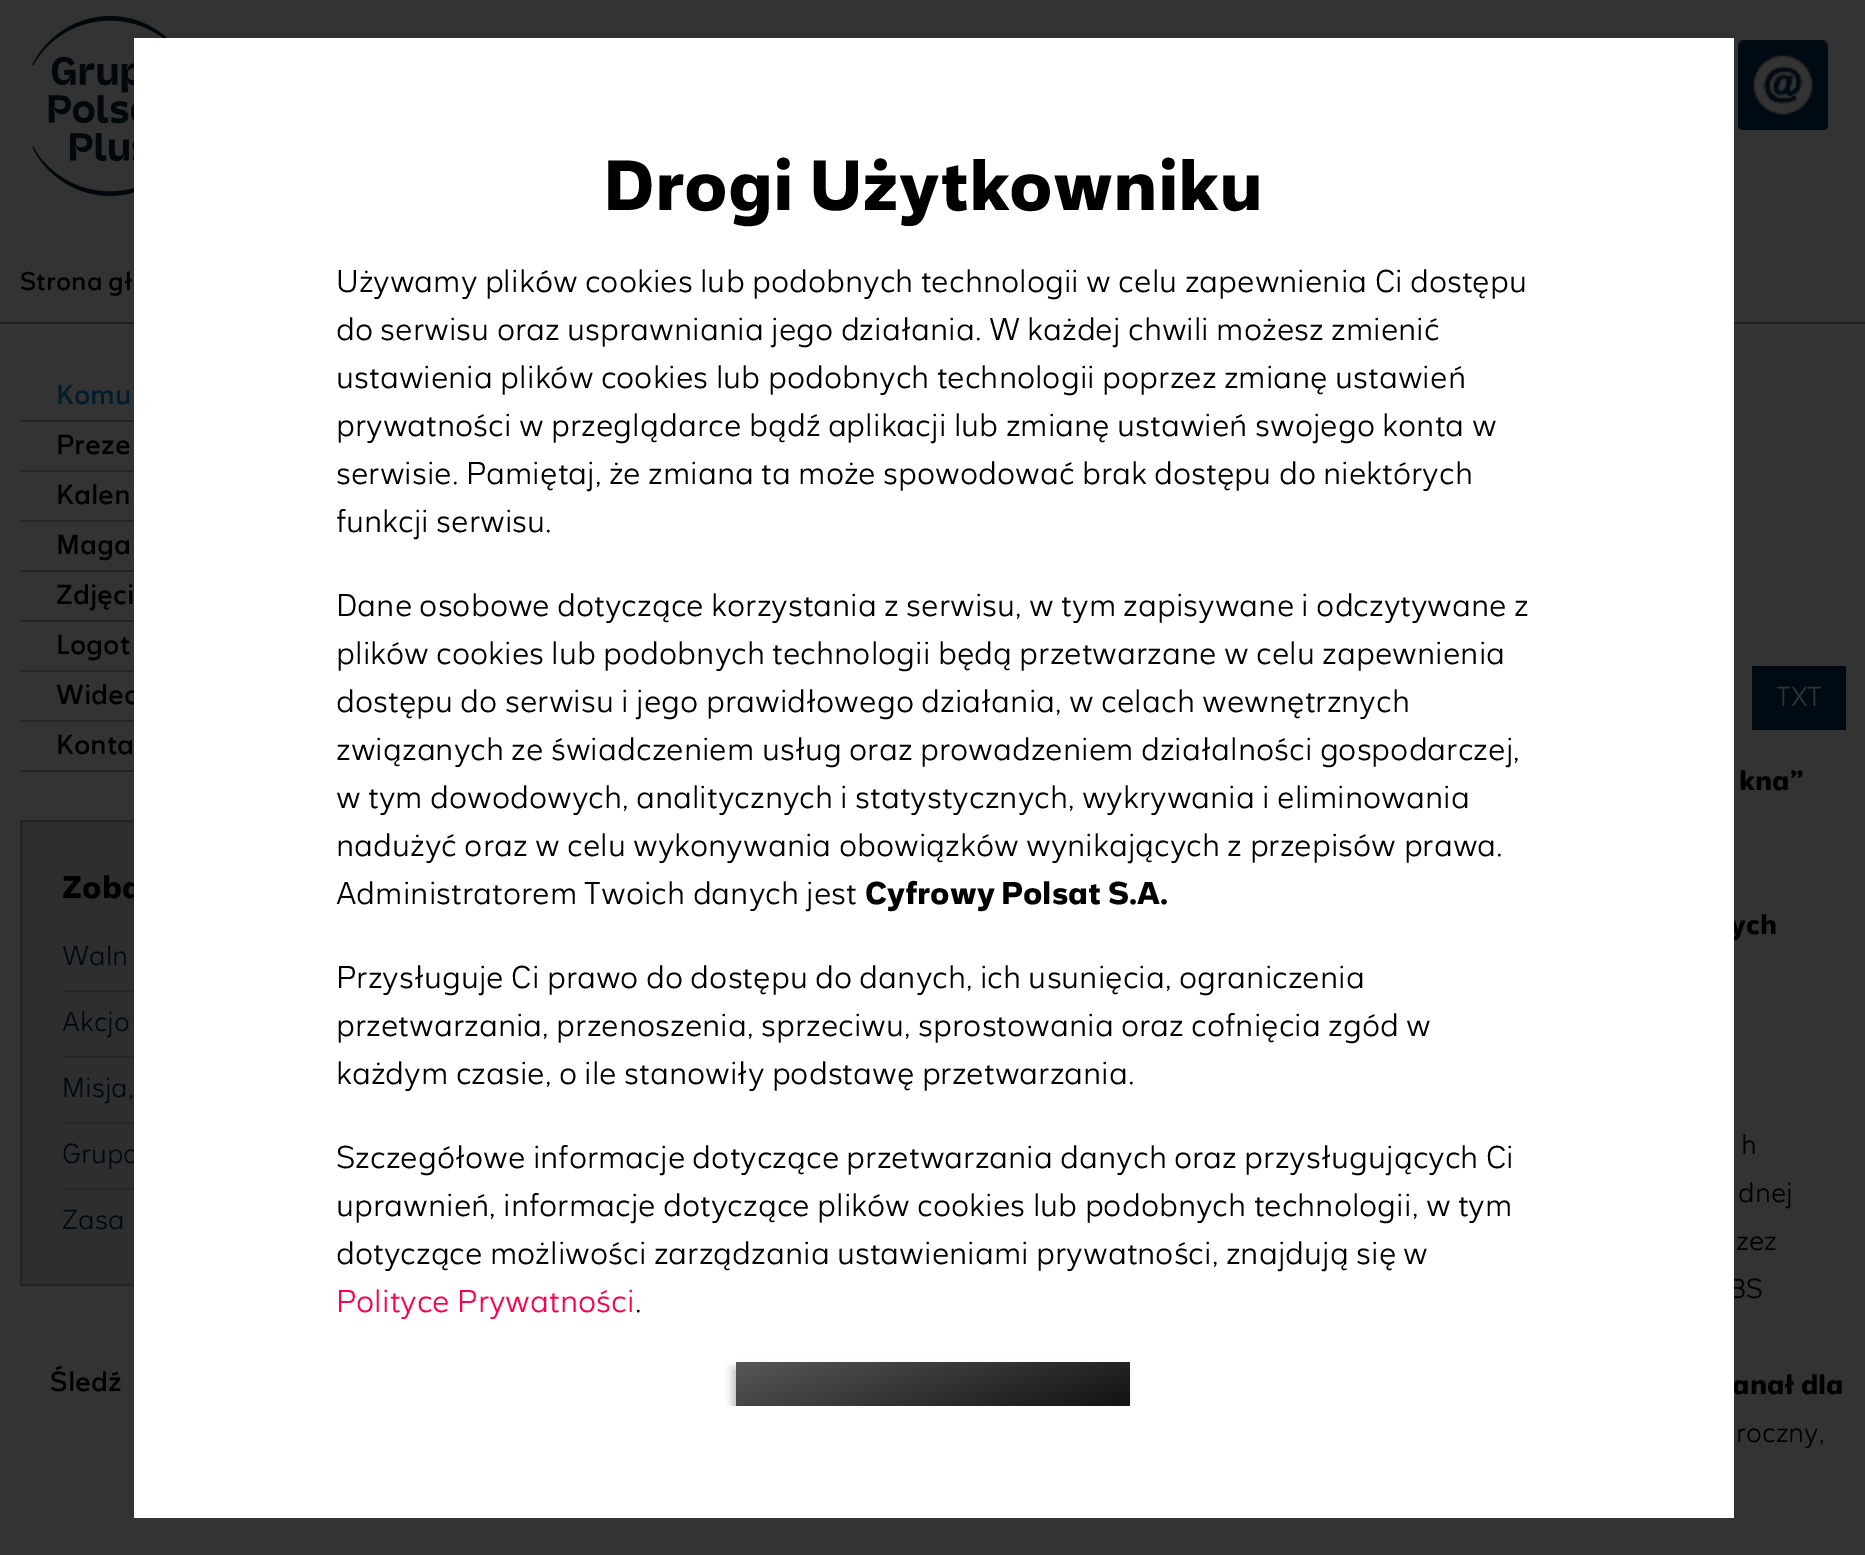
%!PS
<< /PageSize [1865 1555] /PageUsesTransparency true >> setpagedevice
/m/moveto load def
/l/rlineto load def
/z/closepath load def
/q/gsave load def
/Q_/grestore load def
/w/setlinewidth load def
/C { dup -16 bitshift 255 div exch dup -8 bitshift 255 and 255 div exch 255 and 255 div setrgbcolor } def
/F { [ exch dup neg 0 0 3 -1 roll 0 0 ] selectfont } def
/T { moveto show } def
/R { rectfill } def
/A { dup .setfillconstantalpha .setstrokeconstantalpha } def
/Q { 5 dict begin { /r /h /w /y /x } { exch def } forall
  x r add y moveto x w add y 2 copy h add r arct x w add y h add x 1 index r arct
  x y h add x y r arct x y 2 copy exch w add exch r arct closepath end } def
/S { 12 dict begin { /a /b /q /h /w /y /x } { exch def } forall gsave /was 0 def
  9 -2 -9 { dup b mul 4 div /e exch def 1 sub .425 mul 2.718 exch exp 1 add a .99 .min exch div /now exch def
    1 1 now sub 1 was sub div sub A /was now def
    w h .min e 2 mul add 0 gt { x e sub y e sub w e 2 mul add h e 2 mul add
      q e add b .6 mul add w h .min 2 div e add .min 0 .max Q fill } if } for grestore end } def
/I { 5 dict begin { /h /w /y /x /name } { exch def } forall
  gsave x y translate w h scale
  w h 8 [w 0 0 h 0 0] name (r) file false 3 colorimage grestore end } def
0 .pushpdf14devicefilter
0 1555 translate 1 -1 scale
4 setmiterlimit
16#333333 C
0 0 1865 1555 R
(1.rgb) 32 16 136 180 I
16#1F1F1F C
0 322 1865 2 R
/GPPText-Regular 28 F
16#000000 C
(Wideo) 56 704 T
16#2E2E2E C
22 822 112 462 R
16#242424 C
2 w
21 821 424 464 rectstroke
/GPPText-Bold 32 F
16#000000 C
(Zoba) 62 898 T
/GPPText-Light 28 F
16#000A13 C
(Grupa) 62 1163 T
/GPPText-Bold 28 F
16#000000 C
(ych) 1730 934 T
/GPPText-Light 28 F
(BS) 1728 1298 T
/GPPText-Bold 28 F
(anał dla) 1732 1394 T
16#FFFFFF C
134 38 1600 1480 R
/GPPText-Bold 72 F
16#000000 C
(Drogi Użytkowniku) 603 210 T
/GPPText-Light 32 F
(Używamy plików cookies lub podobnych technologii w celu zapewnienia Ci dostępu) 336 292 T
(do serwisu oraz usprawniania jego działania. W każdej chwili możesz zmienić) 336 340 T
(ustawienia plików cookies lub podobnych technologii poprzez zmianę ustawień) 336 388 T
(prywatności w przeglądarce bądź aplikacji lub zmianę ustawień swojego konta w) 336 436 T
(serwisie. Pamiętaj, że zmiana ta może spowodować brak dostępu do niektórych) 336 484 T
(funkcji serwisu.) 336 532 T
(Dane osobowe dotyczące korzystania z serwisu, w tym zapisywane i odczytywane z) 336 616 T
(plików cookies lub podobnych technologii będą przetwarzane w celu zapewnienia) 336 664 T
(dostępu do serwisu i jego prawidłowego działania, w celach wewnętrznych) 336 712 T
(związanych ze świadczeniem usług oraz prowadzeniem działalności gospodarczej,) 336 760 T
(w tym dowodowych, analitycznych i statystycznych, wykrywania i eliminowania) 336 808 T
(nadużyć oraz w celu wykonywania obowiązków wynikających z przepisów prawa.) 336 856 T
(Administratorem Twoich danych jest) 336 904 T
/GPPText-Bold 32 F
(Cyfrowy Polsat S.A.) 865 904 T
/GPPText-Light 32 F
(Przysługuje Ci prawo do dostępu do danych, ich usunięcia, ograniczenia) 336 988 T
(przetwarzania, przenoszenia, sprzeciwu, sprostowania oraz cofnięcia zgód w) 336 1036 T
(każdym czasie, o ile stanowiły podstawę przetwarzania.) 336 1084 T
(Szczegółowe informacje dotyczące przetwarzania danych oraz przysługujących Ci) 336 1168 T
(uprawnień, informacje dotyczące plików cookies lub podobnych technologii, w tym) 336 1216 T
(dotyczące możliwości zarządzania ustawieniami prywatności, znajdują się w) 336 1264 T
16#FA014D C
(Polityce Prywatności) 336 1312 T
16#000000 C
(.) 635 1312 T
q
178 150 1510 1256 rectclip
732 1368 394 88 0 4 .24 S
Q_
q 736 1362 m 394 0 l 0 44 l -394 0 l z clip newpath
<< /ShadingType 2 /ColorSpace /DeviceRGB /Coords [965 1504 901 1308] /Extend [true true] /Function << /FunctionType 2 /Domain [0 1] /C0 [0 0 0] /C1 [.341 .341 .341] /N 1 >> >> shfill Q_
(2.rgb) 1738 40 90 90 I
/GPPText-Regular 26 F
(Strona gł) 20 290 T
16#252525 C
20 420 114 2 R
/GPPText-Regular 28 F
16#001D2B C
(Komu) 56 404 T
16#252525 C
20 470 114 2 R
16#000000 C
(Preze) 56 454 T
16#252525 C
20 520 114 2 R
16#000000 C
(Kalen) 56 504 T
16#252525 C
20 570 114 2 R
16#000000 C
(Maga) 56 554 T
16#252525 C
20 620 114 2 R
16#000000 C
(Zdjęci) 56 604 T
16#252525 C
20 670 114 2 R
16#000000 C
(Logot) 56 654 T
16#252525 C
20 720 114 2 R
20 770 114 2 R
16#000000 C
(Konta) 56 754 T
16#252525 C
62 990 72 2 R
/GPPText-Light 28 F
16#000A13 C
(Waln) 62 965 T
16#252525 C
62 1056 72 2 R
16#000A13 C
(Akcjo) 62 1031 T
16#252525 C
62 1122 72 2 R
16#000A13 C
(Misja,) 62 1097 T
16#252525 C
62 1188 72 2 R
16#000A13 C
(Zasa) 62 1229 T
/GPPText-Regular 28 F
16#000000 C
(Śledź) 50 1391 T
16#000A13 C
1752 666 94 64 R
/GPPText-Light 28 F
16#333333 C
(TXT) 1776 706 T
/GPPText-Bold 28 F
16#000000 C
(kna”) 1739 790 T
/GPPText-Light 28 F
(h) 1741 1154 T
(dnej) 1738 1202 T
(zez) 1736 1250 T
(roczny,) 1736 1442 T
.poppdf14devicefilter showpage
